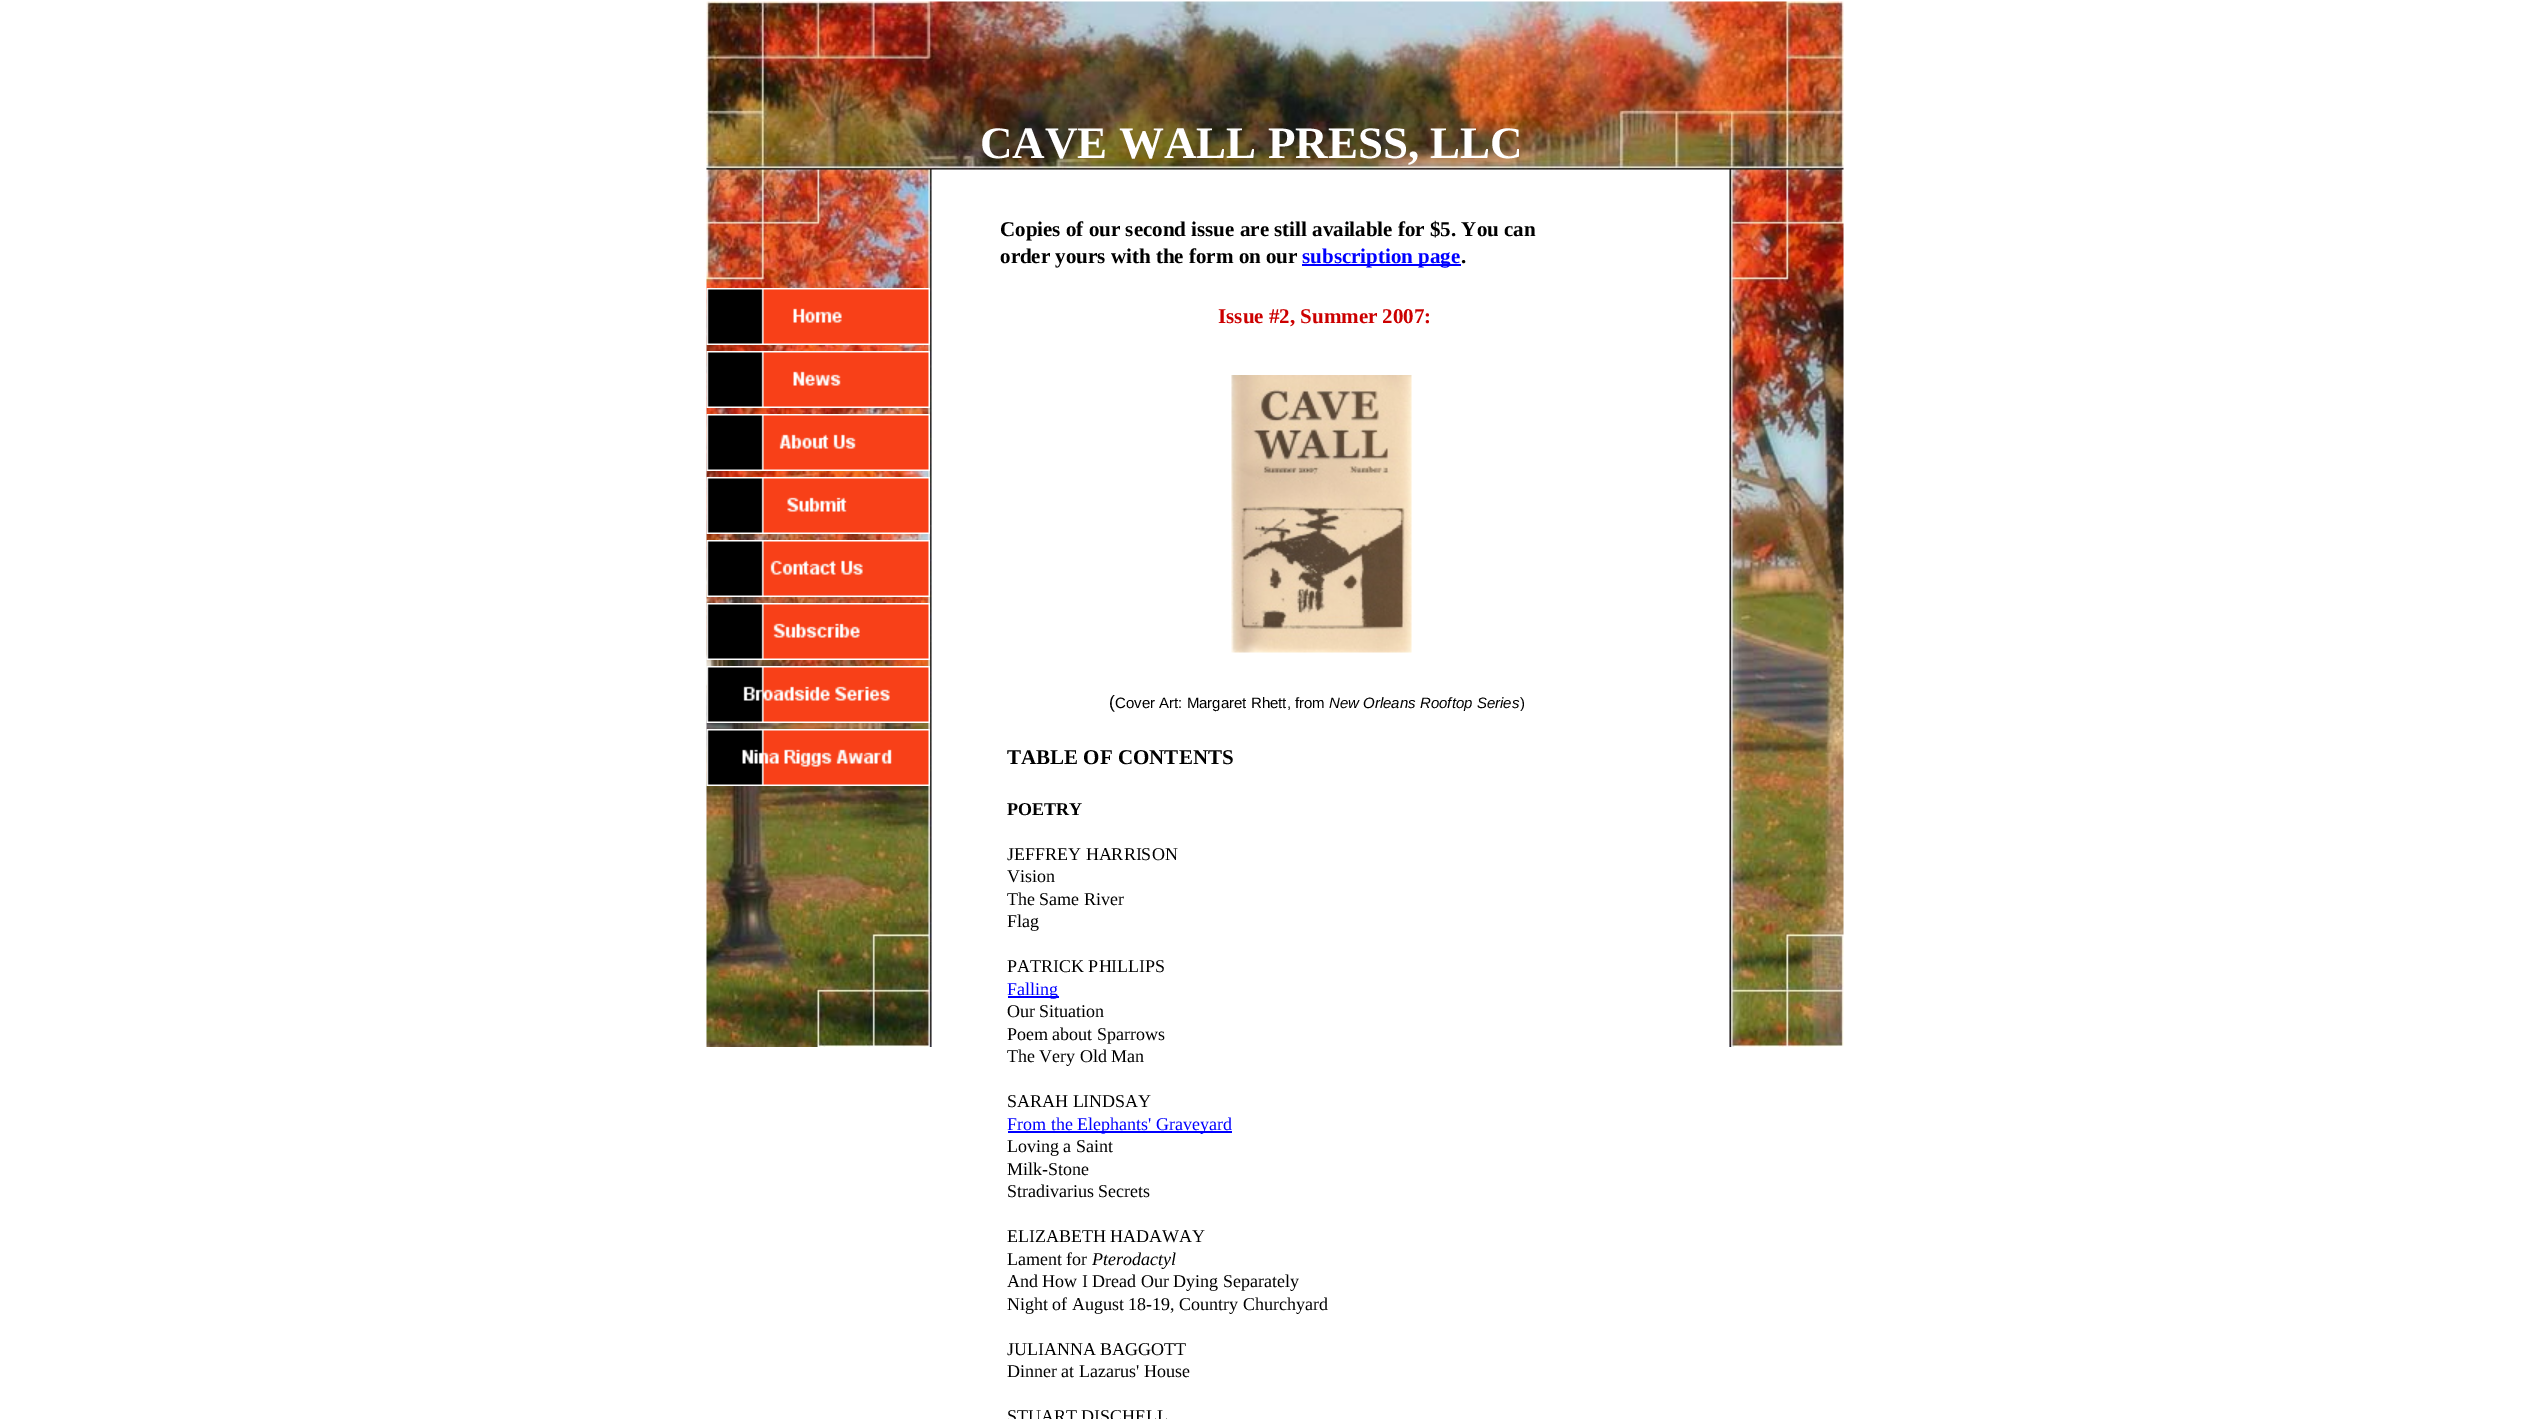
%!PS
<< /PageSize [2548 1419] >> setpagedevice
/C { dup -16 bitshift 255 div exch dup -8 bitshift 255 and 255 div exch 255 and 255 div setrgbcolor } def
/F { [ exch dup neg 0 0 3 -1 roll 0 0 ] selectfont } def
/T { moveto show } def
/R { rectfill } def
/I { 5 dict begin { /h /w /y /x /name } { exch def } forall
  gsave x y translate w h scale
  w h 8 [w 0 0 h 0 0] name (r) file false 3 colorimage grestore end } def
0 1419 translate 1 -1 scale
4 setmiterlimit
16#FFFFFF C
0 0 2548 1419 R
(2.rgb) 706 166 226 881 I
(3.rgb) 1729 166 115 881 I
(1.rgb) 706 1 1138 169 I
/LiberationSerif-Bold 45 F
(CAVE WALL PRESS, LLC) 980 158 T
/LiberationSerif-Bold 21 F
16#000000 C
(Copies of our second issue are still available for $5. You can) 1000 236 T
(order yours with the form on our) 1000 263 T
16#0000FF C
1302 264 159 2 R
(subscription page) 1302 263 T
16#000000 C
(.) 1461 263 T
(4.rgb) 706 288 224 57 I
(5.rgb) 706 351 224 57 I
(6.rgb) 706 414 224 57 I
(7.rgb) 706 477 224 57 I
(8.rgb) 706 540 224 57 I
(9.rgb) 706 603 224 57 I
(10.rgb) 706 666 224 57 I
(11.rgb) 706 729 224 57 I
16#CC0000 C
(Issue #2, Summer 2007:) 1218 323 T
(12.rgb) 1231 375 181 278 I
/LiberationSans-Regular 18 F
16#000000 C
(\() 1109 708 T
/LiberationSans-Regular 15 F
(Cover Art: Margaret Rhett, from) 1115 708 T
/LiberationSans-Italic 15 F
(New Orleans Rooftop Series) 1329 708 T
/LiberationSans-Regular 15 F
(\)) 1520 708 T
/LiberationSerif-Bold 21 F
(TABLE OF CONTENTS) 1007 764 T
/LiberationSerif-Bold 18 F
(POETRY) 1007 815 T
/LiberationSerif-Regular 18 F
(JEFFREY HARRISON) 1007 860 T
(Vision) 1007 882 T
(The Same River) 1007 905 T
(Flag) 1007 927 T
(PATRICK PHILLIPS) 1007 972 T
16#0000FF C
1008 996 51 2 R
(Falling) 1007 995 T
16#000000 C
(Our Situation) 1007 1017 T
(Poem about Sparrows) 1007 1040 T
(The Very Old Man) 1007 1062 T
(SARAH LINDSAY) 1007 1107 T
16#0000FF C
1008 1131 224 2 R
(From the Elephants' Graveyard) 1007 1130 T
16#000000 C
(Loving a Saint) 1007 1152 T
(Milk-Stone) 1007 1175 T
(Stradivarius Secrets) 1007 1197 T
(ELIZABETH HADAWAY) 1007 1242 T
(Lament for) 1007 1265 T
/LiberationSerif-Italic 18 F
(Pterodactyl) 1092 1265 T
/LiberationSerif-Regular 18 F
(And How I Dread Our Dying Separately) 1007 1287 T
(Night of August 18-19, Country Churchyard) 1007 1310 T
(JULIANNA BAGGOTT) 1007 1355 T
(Dinner at Lazarus' House) 1007 1377 T
(STUART DISCHELL) 1007 1422 T
showpage
